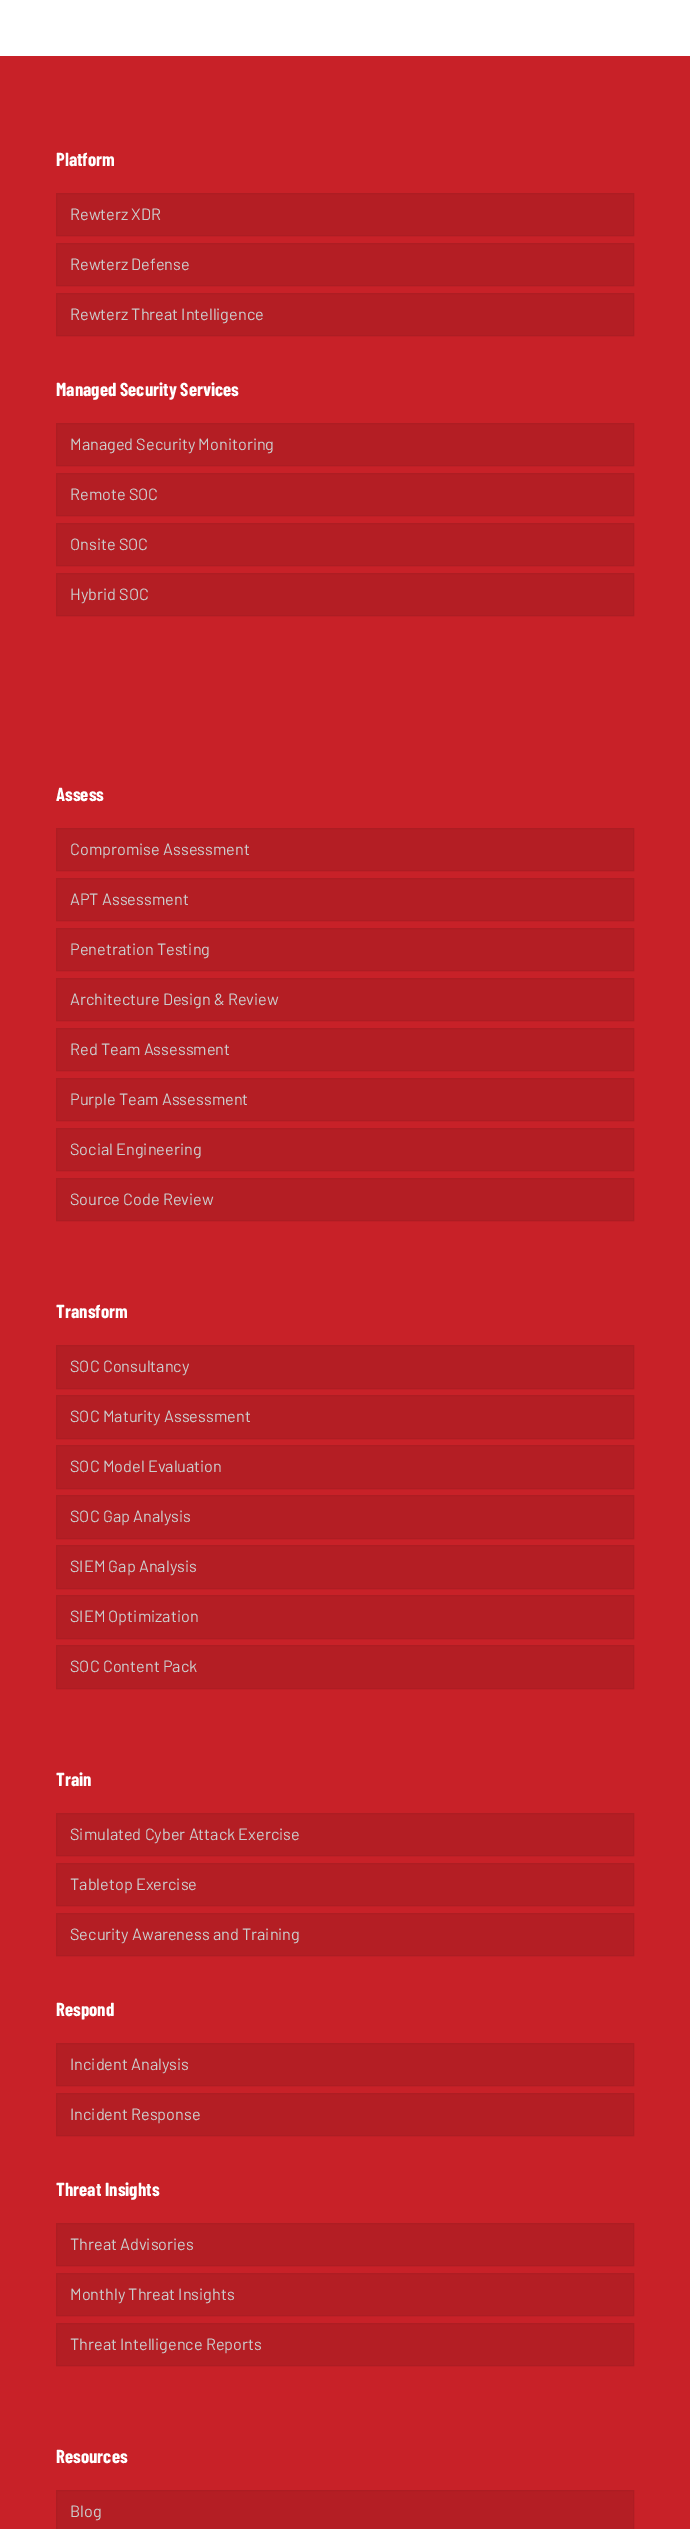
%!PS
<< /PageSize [690 2529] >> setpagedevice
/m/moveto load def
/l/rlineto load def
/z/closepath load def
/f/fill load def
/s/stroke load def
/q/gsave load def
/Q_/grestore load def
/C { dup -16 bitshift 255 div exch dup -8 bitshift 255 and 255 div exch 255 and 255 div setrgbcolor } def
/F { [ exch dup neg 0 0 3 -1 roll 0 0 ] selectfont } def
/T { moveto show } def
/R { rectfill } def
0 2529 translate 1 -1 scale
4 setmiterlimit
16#FFFFFF C
0 0 690 2529 R
16#C82128 C
0 56 690 2473 R
/BarlowCondensed-Bold 18.75 F
16#FFFFFF C
(Platform) 56 166 T
16#B41E24 C
56.5 193.5 m 577 0 l 0 42 l -577 0 l z q f Q_
16#AD1D23 C
s
/Barlow-Regular 16.25 F
16#CCCCCC C
(Rewterz XDR) 70 220 T
16#B41E24 C
56.5 243.5 m 577 0 l 0 42 l -577 0 l z q f Q_
16#AD1D23 C
s
16#CCCCCC C
(Rewterz Defense) 70 270 T
16#B41E24 C
56.5 293.5 m 577 0 l 0 42 l -577 0 l z q f Q_
16#AD1D23 C
s
16#CCCCCC C
(Rewterz Threat Intelligence) 70 320 T
/BarlowCondensed-Bold 18.75 F
16#FFFFFF C
(Managed Security Services) 56 396 T
16#B41E24 C
56.5 423.5 m 577 0 l 0 42 l -577 0 l z q f Q_
16#AD1D23 C
s
/Barlow-Regular 16.25 F
16#CCCCCC C
(Managed Security Monitoring) 70 450 T
16#B41E24 C
56.5 473.5 m 577 0 l 0 42 l -577 0 l z q f Q_
16#AD1D23 C
s
16#CCCCCC C
(Remote SOC) 70 500 T
16#B41E24 C
56.5 523.5 m 577 0 l 0 42 l -577 0 l z q f Q_
16#AD1D23 C
s
16#CCCCCC C
(Onsite SOC) 70 550 T
16#B41E24 C
56.5 573.5 m 577 0 l 0 42 l -577 0 l z q f Q_
16#AD1D23 C
s
16#CCCCCC C
(Hybrid SOC) 70 600 T
/BarlowCondensed-Bold 18.75 F
16#FFFFFF C
(Assess) 56 801 T
16#B41E24 C
56.5 828.5 m 577 0 l 0 42 l -577 0 l z q f Q_
16#AD1D23 C
s
/Barlow-Regular 16.25 F
16#CCCCCC C
(Compromise Assessment) 70 855 T
16#B41E24 C
56.5 878.5 m 577 0 l 0 42 l -577 0 l z q f Q_
16#AD1D23 C
s
16#CCCCCC C
(APT Assessment) 70 905 T
16#B41E24 C
56.5 928.5 m 577 0 l 0 42 l -577 0 l z q f Q_
16#AD1D23 C
s
16#CCCCCC C
(Penetration Testing) 70 955 T
16#B41E24 C
56.5 978.5 m 577 0 l 0 42 l -577 0 l z q f Q_
16#AD1D23 C
s
16#CCCCCC C
(Architecture Design & Review) 70 1005 T
16#B41E24 C
56.5 1028.5 m 577 0 l 0 42 l -577 0 l z q f Q_
16#AD1D23 C
s
16#CCCCCC C
(Red Team Assessment) 70 1055 T
16#B41E24 C
56.5 1078.5 m 577 0 l 0 42 l -577 0 l z q f Q_
16#AD1D23 C
s
16#CCCCCC C
(Purple Team Assessment) 70 1105 T
16#B41E24 C
56.5 1128.5 m 577 0 l 0 42 l -577 0 l z q f Q_
16#AD1D23 C
s
16#CCCCCC C
(Social Engineering) 70 1155 T
16#B41E24 C
56.5 1178.5 m 577 0 l 0 42 l -577 0 l z q f Q_
16#AD1D23 C
s
16#CCCCCC C
(Source Code Review) 70 1205 T
/BarlowCondensed-Bold 18.75 F
16#FFFFFF C
(Transform) 56 1318 T
16#B41E24 C
56.5 1345.5 m 577 0 l 0 43 l -577 0 l z q f Q_
16#AD1D23 C
s
/Barlow-Regular 16.25 F
16#CCCCCC C
(SOC Consultancy) 70 1372 T
16#B41E24 C
56.5 1395.5 m 577 0 l 0 43 l -577 0 l z q f Q_
16#AD1D23 C
s
16#CCCCCC C
(SOC Maturity Assessment) 70 1422 T
16#B41E24 C
56.5 1445.5 m 577 0 l 0 43 l -577 0 l z q f Q_
16#AD1D23 C
s
16#CCCCCC C
(SOC Model Evaluation) 70 1472 T
16#B41E24 C
56.5 1495.5 m 577 0 l 0 43 l -577 0 l z q f Q_
16#AD1D23 C
s
16#CCCCCC C
(SOC Gap Analysis) 70 1522 T
16#B41E24 C
56.5 1545.5 m 577 0 l 0 43 l -577 0 l z q f Q_
16#AD1D23 C
s
16#CCCCCC C
(SIEM Gap Analysis) 70 1572 T
16#B41E24 C
56.5 1595.5 m 577 0 l 0 43 l -577 0 l z q f Q_
16#AD1D23 C
s
16#CCCCCC C
(SIEM Optimization) 70 1622 T
16#B41E24 C
56.5 1645.5 m 577 0 l 0 43 l -577 0 l z q f Q_
16#AD1D23 C
s
16#CCCCCC C
(SOC Content Pack) 70 1672 T
/BarlowCondensed-Bold 18.75 F
16#FFFFFF C
(Train) 56 1786 T
16#B41E24 C
56.5 1813.5 m 577 0 l 0 42 l -577 0 l z q f Q_
16#AD1D23 C
s
/Barlow-Regular 16.25 F
16#CCCCCC C
(Simulated Cyber Attack Exercise) 70 1840 T
16#B41E24 C
56.5 1863.5 m 577 0 l 0 42 l -577 0 l z q f Q_
16#AD1D23 C
s
16#CCCCCC C
(Tabletop Exercise) 70 1890 T
16#B41E24 C
56.5 1913.5 m 577 0 l 0 42 l -577 0 l z q f Q_
16#AD1D23 C
s
16#CCCCCC C
(Security Awareness and Training) 70 1940 T
/BarlowCondensed-Bold 18.75 F
16#FFFFFF C
(Respond) 56 2016 T
16#B41E24 C
56.5 2043.5 m 577 0 l 0 42 l -577 0 l z q f Q_
16#AD1D23 C
s
/Barlow-Regular 16.25 F
16#CCCCCC C
(Incident Analysis) 70 2070 T
16#B41E24 C
56.5 2093.5 m 577 0 l 0 42 l -577 0 l z q f Q_
16#AD1D23 C
s
16#CCCCCC C
(Incident Response) 70 2120 T
/BarlowCondensed-Bold 18.75 F
16#FFFFFF C
(Threat Insights) 56 2196 T
16#B41E24 C
56.5 2223.5 m 577 0 l 0 42 l -577 0 l z q f Q_
16#AD1D23 C
s
/Barlow-Regular 16.25 F
16#CCCCCC C
(Threat Advisories) 70 2250 T
16#B41E24 C
56.5 2273.5 m 577 0 l 0 42 l -577 0 l z q f Q_
16#AD1D23 C
s
16#CCCCCC C
(Monthly Threat Insights) 70 2300 T
16#B41E24 C
56.5 2323.5 m 577 0 l 0 42 l -577 0 l z q f Q_
16#AD1D23 C
s
16#CCCCCC C
(Threat Intelligence Reports) 70 2350 T
/BarlowCondensed-Bold 18.75 F
16#FFFFFF C
(Resources) 56 2463 T
16#B41E24 C
56.5 2490.5 m 577 0 l 0 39 l -577 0 l z q f Q_
16#AD1D23 C
s
/Barlow-Regular 16.25 F
16#CCCCCC C
(Blog) 70 2517 T
showpage
